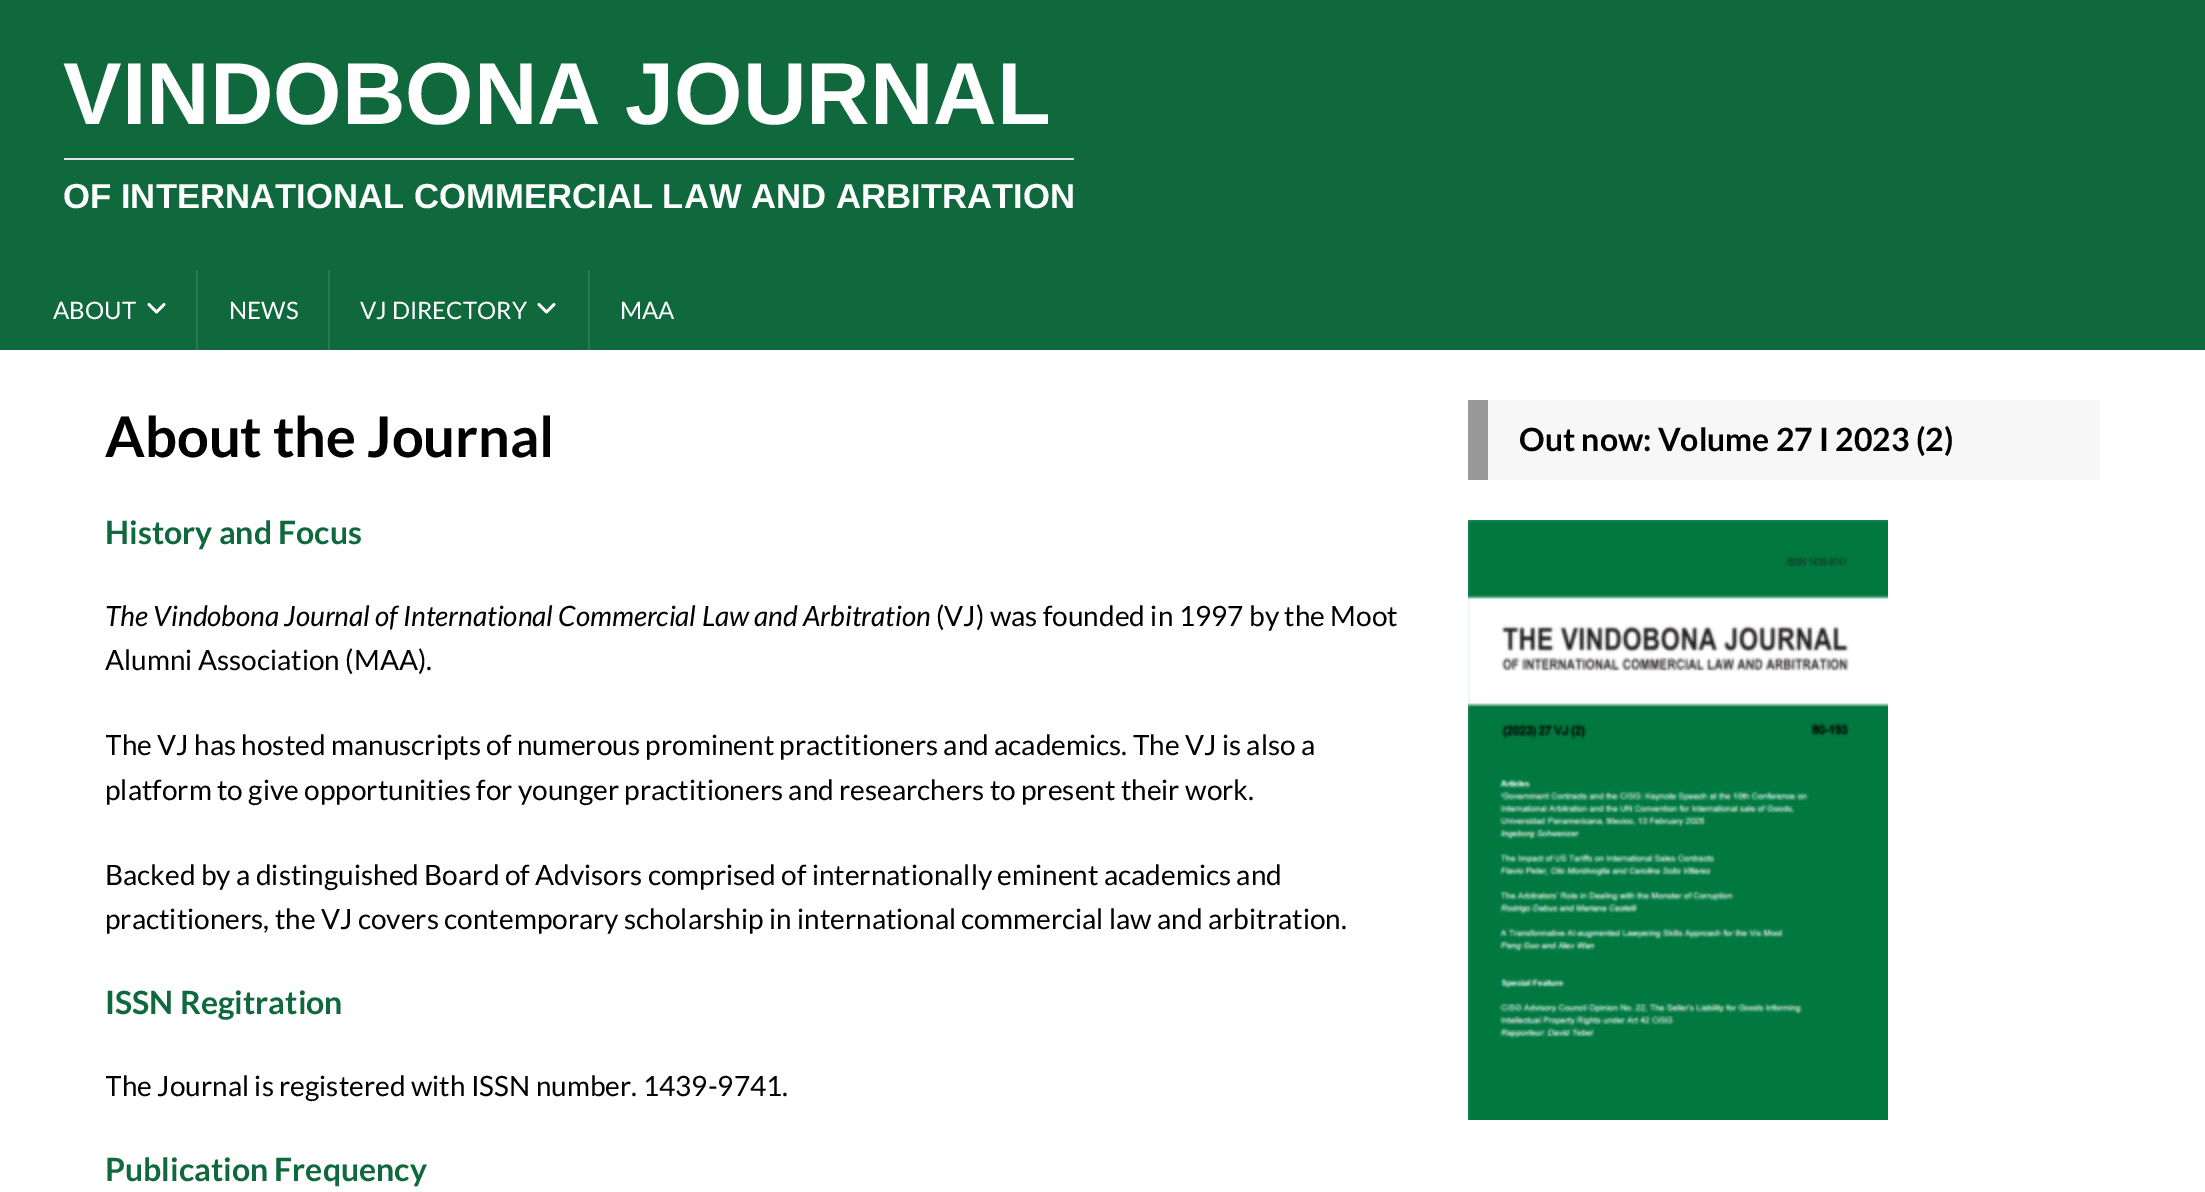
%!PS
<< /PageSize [2205 1192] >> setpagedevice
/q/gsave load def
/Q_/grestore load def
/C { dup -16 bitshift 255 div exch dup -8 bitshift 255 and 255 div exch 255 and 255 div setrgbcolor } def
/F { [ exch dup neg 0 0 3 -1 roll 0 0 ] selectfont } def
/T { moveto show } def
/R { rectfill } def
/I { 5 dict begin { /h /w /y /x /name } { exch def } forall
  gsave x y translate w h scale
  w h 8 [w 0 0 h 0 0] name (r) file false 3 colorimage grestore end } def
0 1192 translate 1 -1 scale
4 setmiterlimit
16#FFFFFF C
0 0 2205 1192 R
16#10693C C
0 0 2205 350 R
/LiberationSans-Bold 88 F
16#FFFFFF C
(VINDOBONA JOURNAL) 63 124 T
16#E5E5E5 C
64 158 1010 2 R
/LiberationSans-Bold 34.7 F
16#FFFFFF C
(OF INTERNATIONAL COMMERCIAL LAW AND ARBITRATION) 63 208 T
/Lato-Regular 24 F
(ABOUT) 53 319 T
(1.rgb) 147 303 19 11 I
16#287850 C
196 270 2 80 R
16#FFFFFF C
(NEWS) 229 319 T
16#287850 C
328 270 2 80 R
16#FFFFFF C
(VJ DIRECTORY) 360 319 T
(1.rgb) 537 303 19 11 I
16#287850 C
588 270 2 80 R
16#FFFFFF C
(MAA) 620 319 T
/Lato-Bold 56 F
16#000000 C
(About the Journal) 105 457 T
/Lato-Bold 32 F
16#10693C C
(History and Focus) 105 544 T
/Lato-Italic 28 F
16#000000 C
(The Vindobona Journal of International Commercial Law and Arbitration) 105 626 T
/Lato-Regular 28 F
(\(VJ\) was founded in 1997 by the Moot) 936 626 T
(Alumni Association \(MAA\).) 105 670 T
q
106 400 1312 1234 rectclip
(The VJ has hosted manuscripts of numerous prominent practitioners and academics. The VJ is also a) 105 755 T
Q_
(platform to give opportunities for younger practitioners and researchers to present their work.) 105 800 T
(Backed by a distinguished Board of Advisors comprised of internationally eminent academics and) 105 885 T
(practitioners, the VJ covers contemporary scholarship in international commercial law and arbitration.) 105 929 T
/Lato-Bold 32 F
16#10693C C
(ISSN Regitration) 105 1014 T
q
106 400 1312 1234 rectclip
/Lato-Regular 28 F
16#000000 C
(The Journal is registered with ISSN number. 1439-9741.) 105 1096 T
Q_
(Publication Frequency) 105 1181 T
16#F7F7F7 C
1488 400 612 80 R
16#999999 C
1468 400 20 80 R
16#000000 C
(Out now: Volume 27 I 2023 \(2\)) 1519 451 T
(2.rgb) 1468 520 420 600 I
showpage
